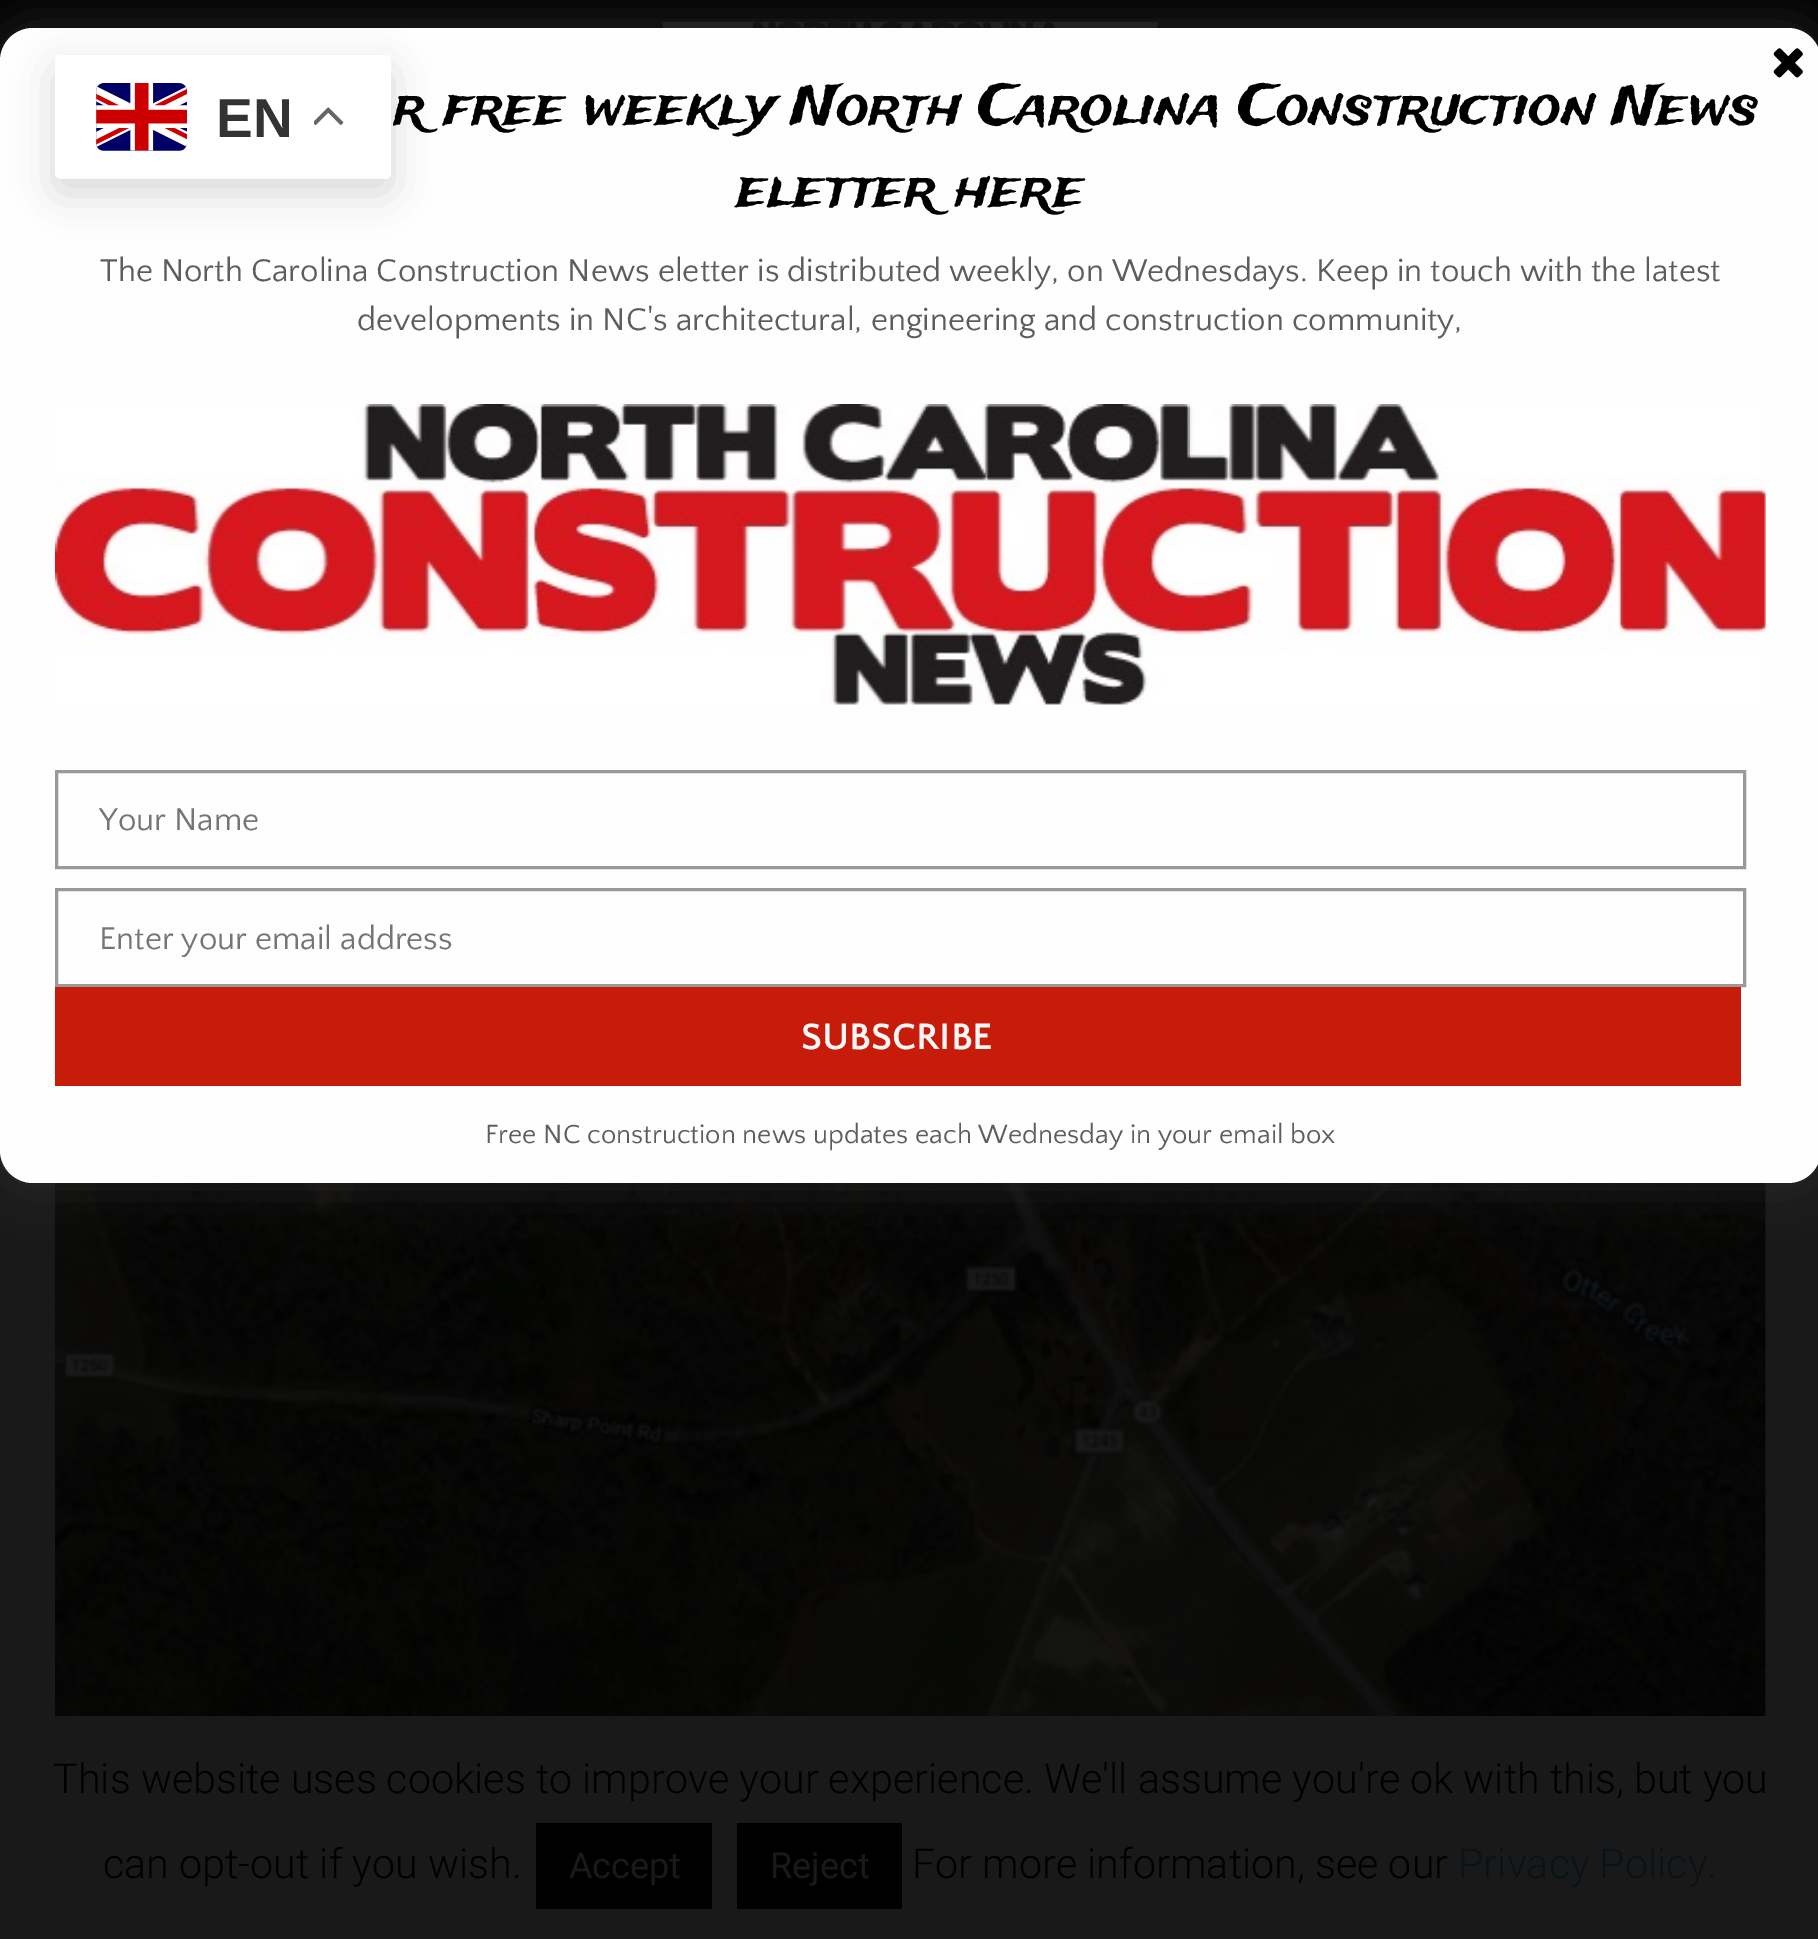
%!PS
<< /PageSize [1818 1939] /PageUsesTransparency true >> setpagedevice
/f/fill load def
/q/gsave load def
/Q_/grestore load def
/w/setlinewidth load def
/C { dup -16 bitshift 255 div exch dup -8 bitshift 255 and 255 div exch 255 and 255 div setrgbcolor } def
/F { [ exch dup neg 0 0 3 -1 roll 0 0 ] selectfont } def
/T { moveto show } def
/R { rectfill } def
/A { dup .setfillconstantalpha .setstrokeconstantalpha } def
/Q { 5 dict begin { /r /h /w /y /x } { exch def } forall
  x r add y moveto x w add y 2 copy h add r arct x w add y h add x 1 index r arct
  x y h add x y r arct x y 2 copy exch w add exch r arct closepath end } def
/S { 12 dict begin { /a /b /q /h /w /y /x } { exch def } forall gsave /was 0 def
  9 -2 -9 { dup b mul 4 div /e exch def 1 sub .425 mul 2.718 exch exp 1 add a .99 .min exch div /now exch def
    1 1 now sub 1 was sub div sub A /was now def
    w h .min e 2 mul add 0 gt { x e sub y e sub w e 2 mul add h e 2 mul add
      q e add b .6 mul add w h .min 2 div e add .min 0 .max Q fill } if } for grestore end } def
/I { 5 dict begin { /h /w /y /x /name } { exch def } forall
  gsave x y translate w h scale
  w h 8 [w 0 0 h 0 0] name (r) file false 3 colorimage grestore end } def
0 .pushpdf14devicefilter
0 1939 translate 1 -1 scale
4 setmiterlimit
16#191919 C
0 0 1818 1939 R
16#030303 C
0 0 1818 61 R
(1.rgb) 662 22 496 6 I
(2.rgb) 55 1183 1711 533 I
16#323232 C
-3 25 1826 1160 36 23.5 .69 S
16#FEFEFE C
0 28 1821 1155 33 Q f
(3.rgb) 1773 48 30 30 I
/TradeWinds-Regular 55 F
16#000000 C
(r free weekly North Carolina Construction News) 393 124 T
(eletter here) 736 206 T
/QuattrocentoSans-Regular 33 F
16#5D5D5D C
(The North Carolina Construction News eletter is distributed weekly, on Wednesdays. Keep in touch with the latest) 100 281 T
(developments in NC's architectural, engineering and construction community,) 357 330 T
(4.rgb) 55 404 1711 301 I
16#999999 C
3 w
56.5 771.5 1688 96 rectstroke
16#757575 C
(Your Name) 99 830 T
16#999999 C
56.5 889.5 1688 96 rectstroke
q
58 921 1686 36 rectclip
16#757575 C
(Enter your email address) 99 949 T
Q_
16#C71C09 C
55 987 1686 99 R
/QuattrocentoSans-Bold 38.5 F
16#F7F7F7 C
(SUBSCRIBE) 801 1049 T
/QuattrocentoSans-Regular 27.5 F
16#5D5D5D C
(Free NC construction news updates each Wednesday in your email box) 485 1143 T
16#000000 C
55 69 336 124 6 20.5 .15 S
16#FFFFFF C
55 55 336 124 6 Q f
(5.rgb) 96 83 91 68 I
/LiberationSans-Bold 55 F
16#333333 C
(EN) 216 137 T
(6.rgb) 314 107 30 18 I
/Roboto-Light 41.25 F
16#000000 C
(This website uses cookies to improve your experience. We'll assume you're ok with this, but you) 53 1793 T
(can opt-out if you wish.) 103 1878 T
536 1823 176 86 R
/Roboto-Regular 36 F
16#191919 C
(Accept) 569 1878 T
16#000000 C
737 1823 165 86 R
16#191919 C
(Reject) 770 1878 T
/Roboto-Light 41.25 F
16#000000 C
(For more information, see our) 912 1878 T
16#081218 C
(Privacy Policy.) 1458 1878 T
.poppdf14devicefilter showpage
